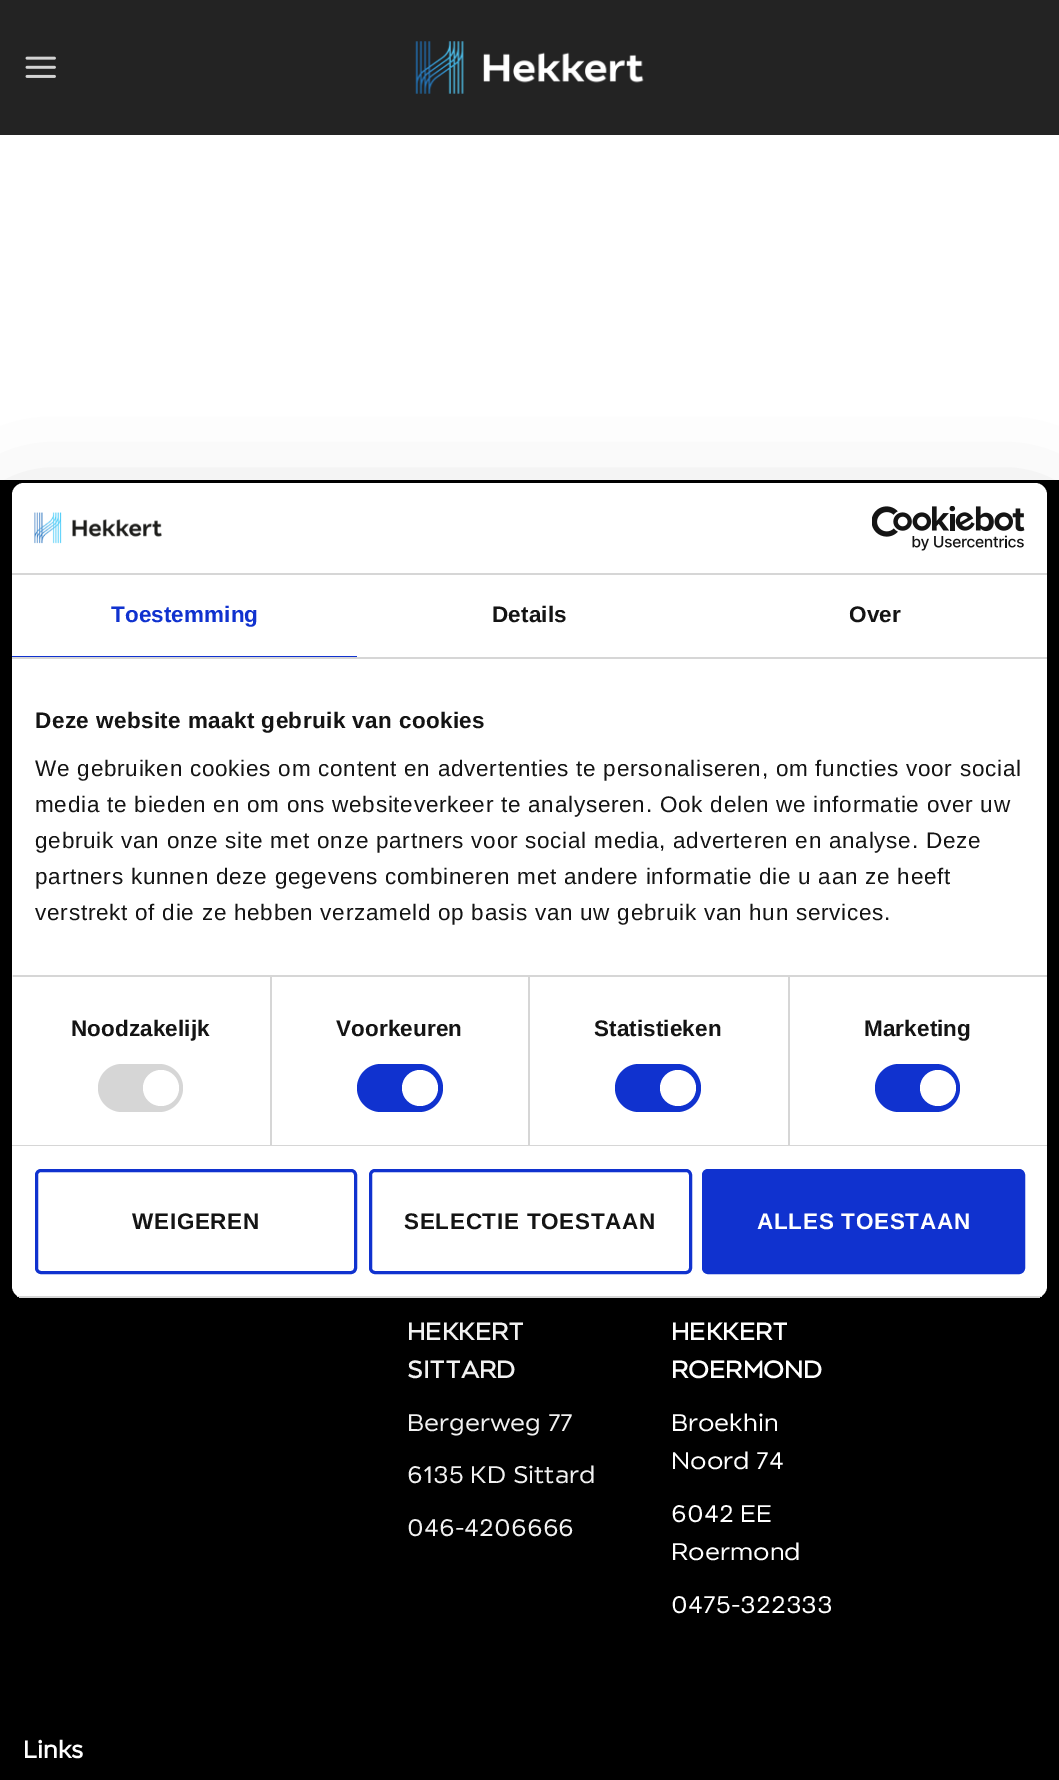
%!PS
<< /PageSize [1059 1780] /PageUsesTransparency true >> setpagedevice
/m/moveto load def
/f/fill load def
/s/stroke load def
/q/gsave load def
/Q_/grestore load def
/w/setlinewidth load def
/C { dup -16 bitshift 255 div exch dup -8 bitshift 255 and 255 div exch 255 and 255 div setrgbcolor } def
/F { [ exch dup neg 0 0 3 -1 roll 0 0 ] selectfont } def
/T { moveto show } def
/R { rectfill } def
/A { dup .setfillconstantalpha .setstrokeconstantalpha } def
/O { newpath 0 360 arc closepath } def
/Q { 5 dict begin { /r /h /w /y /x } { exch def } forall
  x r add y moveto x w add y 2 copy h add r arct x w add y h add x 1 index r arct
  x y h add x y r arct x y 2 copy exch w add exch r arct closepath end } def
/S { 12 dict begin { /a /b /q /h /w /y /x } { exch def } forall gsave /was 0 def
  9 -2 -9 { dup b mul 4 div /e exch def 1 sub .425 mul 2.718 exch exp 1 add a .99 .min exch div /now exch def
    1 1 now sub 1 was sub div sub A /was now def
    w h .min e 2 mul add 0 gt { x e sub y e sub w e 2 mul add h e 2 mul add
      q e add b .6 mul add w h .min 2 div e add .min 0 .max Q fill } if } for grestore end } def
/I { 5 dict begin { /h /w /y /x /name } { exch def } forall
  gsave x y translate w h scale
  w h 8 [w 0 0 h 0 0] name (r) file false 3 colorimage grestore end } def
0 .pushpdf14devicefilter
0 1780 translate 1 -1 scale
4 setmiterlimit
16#FFFFFF C
0 0 1059 1780 R
16#000000 C
0 480 1059 1300 R
12 531 1035 815 12 51 .3 S
16#FFFFFF C
12 483 1035 815 12 Q f
16#D6D6D6 C
12 573 1035 2 R
(1.rgb) 34 512 128 32 I
(2.rgb) 872 506 153 45 I
12 657 1035 2 R
16#1032CF C
12 656 345 1 R
/LiberationSans-Bold 22.5 F
111 622 m .1 0 (Toestemming) ashow
16#141414 C
492 622 m .1 0 (Details) ashow
849 622 m .1 0 (Over) ashow
16#D6D6D6 C
12 975 1035 2 R
16#141414 C
35 728 m .4 0 (Deze website maakt gebruik van cookies) ashow
/LiberationSans-Regular 22.5 F
35 776 m .75 0 (We gebruiken cookies om content en advertenties te personaliseren, om functies voor social) ashow
35 812 m .75 0 (media te bieden en om ons websiteverkeer te analyseren. Ook delen we informatie over uw) ashow
35 848 m .75 0 (gebruik van onze site met onze partners voor social media, adverteren en analyse. Deze) ashow
35 884 m .75 0 (partners kunnen deze gegevens combineren met andere informatie die u aan ze heeft) ashow
35 920 m .75 0 (verstrekt of die ze hebben verzameld op basis van uw gebruik van hun services.) ashow
16#D6D6D6 C
12 1145 1035 1 R
16#F1F1F1 C
12 975 1 2 R
16#D6D6D6 C
270 977 2 168 R
/LiberationSans-Bold 22.5 F
16#141414 C
71 1036 m .1 0 (Noodzakelijk) ashow
16#D6D6D6 C
98 1064 85 48 24 Q f
16#FFFFFF C
161 1088 18 O f
16#D6D6D6 C
528 977 2 168 R
16#141414 C
336 1036 m .1 0 (Voorkeuren) ashow
16#1032CF C
357 1064 86 48 24 Q f
16#FFFFFF C
420 1088 18 O f
16#D6D6D6 C
788 977 2 168 R
16#141414 C
594 1036 m .1 0 (Statistieken) ashow
16#1032CF C
615 1064 86 48 24 Q f
16#FFFFFF C
678 1088 18 O f
16#141414 C
864 1036 m .1 0 (Marketing) ashow
16#1032CF C
875 1064 85 48 24 Q f
16#FFFFFF C
938 1088 18 O f
q
12 483 1035 815 12 Q clip newpath
16#D6D6D6 C
12 1296 1035 2 R
Q_
16#1032CF C
3 w
36.5 1170.5 319 102 4.5 Q s
16#141414 C
132 1229 m .7 0 (WEIGEREN) ashow
16#1032CF C
370.5 1170.5 320 102 4.5 Q s
16#141414 C
404 1229 m .7 0 (SELECTIE TOESTAAN) ashow
16#1032CF C
703.5 1170.5 320 102 4.5 Q q f Q_
s
16#FFFFFF C
757 1229 m .7 0 (ALLES TOESTAAN) ashow
16#232323 C
0 0 1059 135 R
(3.rgb) 25 56 31 22 I
(4.rgb) 415 41 229 53 I
/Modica-Bold 24 F
16#F1F1F1 C
(HEKKERT) 407 1340 T
(SITTARD) 407 1378 T
/Modica-Regular 24 F
(Bergerweg 77) 407 1431 T
(6135 KD Sittard) 407 1483 T
(046-4206666) 407 1536 T
/Modica-Bold 24 F
16#FFFFFF C
(HEKKERT) 671 1340 T
(ROERMOND) 671 1378 T
/Modica-Regular 24 F
(Broekhin) 671 1431 T
(Noord 74) 671 1469 T
(6042 EE) 671 1522 T
(Roermond) 671 1560 T
(0475-322333) 671 1613 T
/Modica-Bold 24 F
(Links) 23 1758 T
.poppdf14devicefilter showpage
